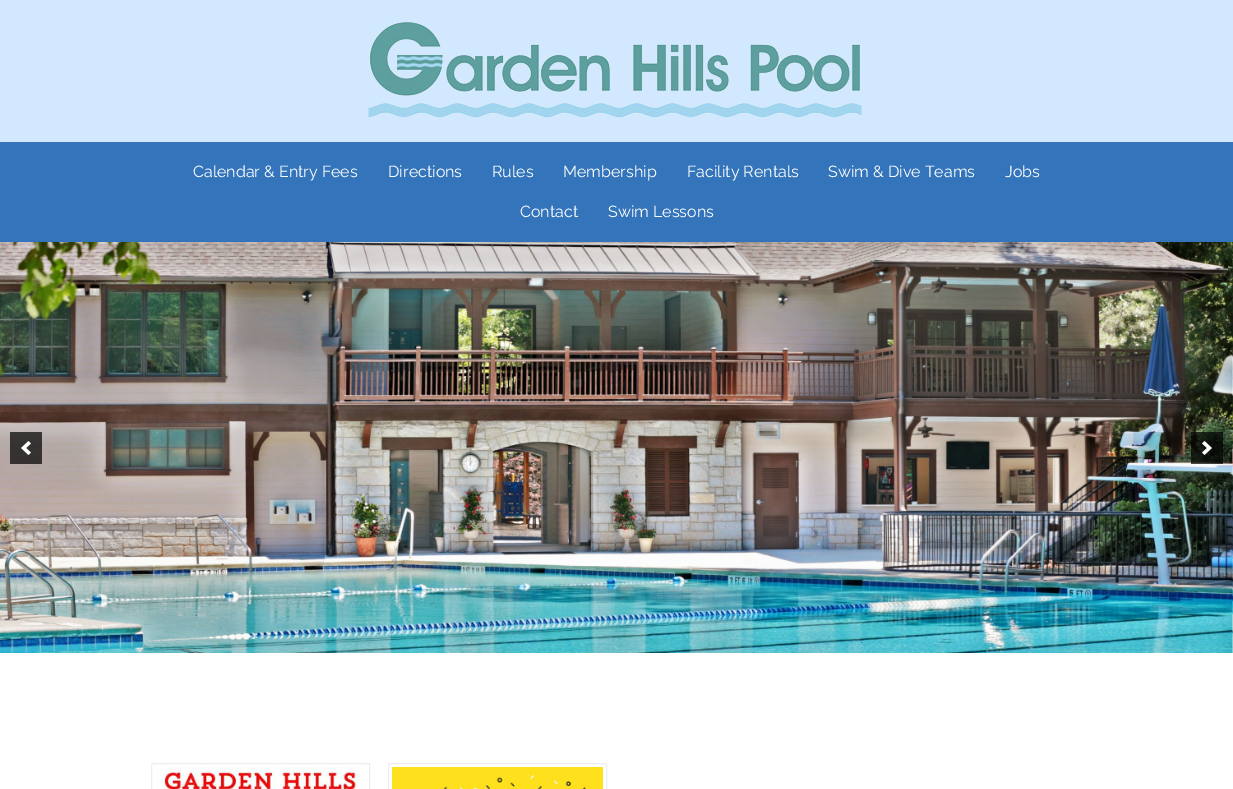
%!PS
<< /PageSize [1233 789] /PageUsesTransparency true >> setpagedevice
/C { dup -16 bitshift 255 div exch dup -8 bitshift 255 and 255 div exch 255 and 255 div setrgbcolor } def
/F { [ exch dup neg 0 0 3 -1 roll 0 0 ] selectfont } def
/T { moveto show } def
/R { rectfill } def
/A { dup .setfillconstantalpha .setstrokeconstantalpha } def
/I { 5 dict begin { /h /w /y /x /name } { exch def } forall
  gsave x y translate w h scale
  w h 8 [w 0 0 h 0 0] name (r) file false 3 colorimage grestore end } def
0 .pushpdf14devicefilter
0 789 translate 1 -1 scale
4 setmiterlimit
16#D2E8FF C
0 0 1233 789 R
(1.rgb) 368 22 494 96 I
16#3374BA C
0 142 1233 100 R
/Raleway-Thin 16 F
16#FFFFFF C
(Calendar & Entry Fees) 193 177 T
(Directions) 388 177 T
(Rules) 492 177 T
(Membership) 563 177 T
(Facility Rentals) 687 177 T
(Swim & Dive Teams) 828 177 T
(Jobs) 1005 177 T
(Contact) 520 217 T
(Swim Lessons) 608 217 T
0 653 1233 136 R
(2.rgb) 0 242 1233 411 I
0.7 A
16#000000 C
10 432 32 32 R
1 A
(3.rgb) 21 441 10 14 I
0.7 A
1191 432 32 32 R
1 A
(4.rgb) 1202 441 10 14 I
16#EEEEEE C
151.5 763.5 218 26 rectstroke
(5.rgb) 161 767 200 22 I
388.5 763.5 218 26 rectstroke
(6.rgb) 392 767 211 22 I
.poppdf14devicefilter showpage
